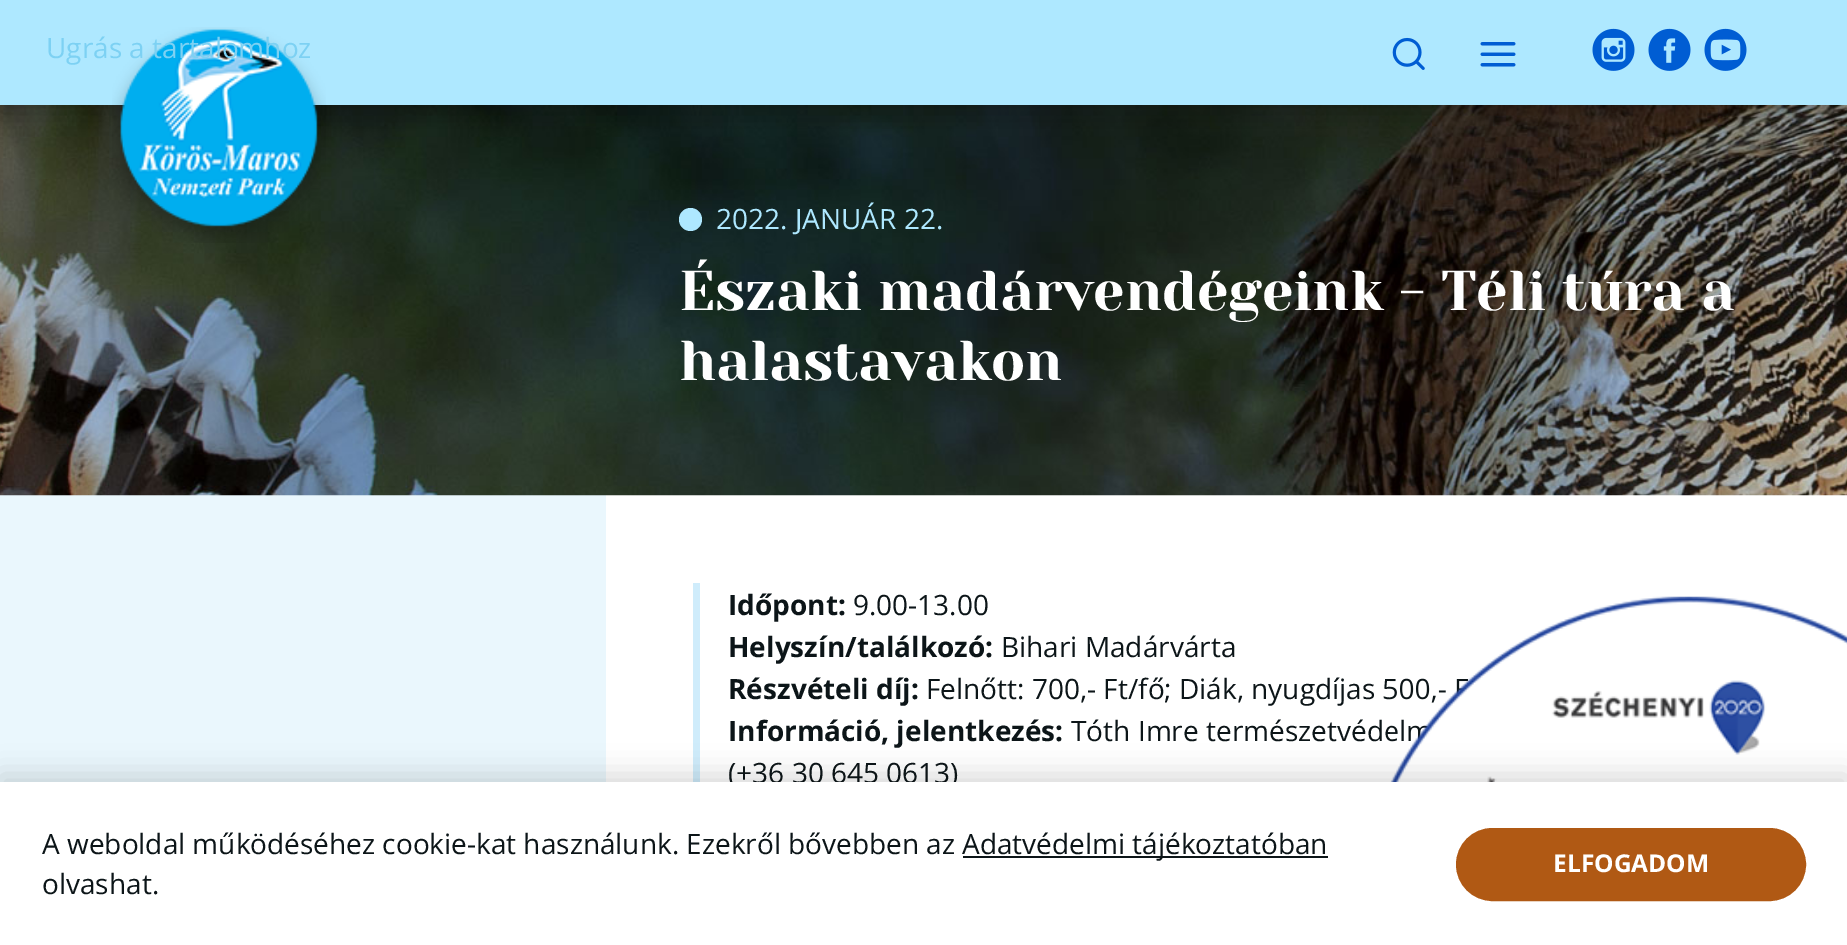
%!PS
<< /PageSize [1847 945] /PageUsesTransparency true >> setpagedevice
/f/fill load def
/s/stroke load def
/q/gsave load def
/Q_/grestore load def
/w/setlinewidth load def
/C { dup -16 bitshift 255 div exch dup -8 bitshift 255 and 255 div exch 255 and 255 div setrgbcolor } def
/F { [ exch dup neg 0 0 3 -1 roll 0 0 ] selectfont } def
/T { moveto show } def
/R { rectfill } def
/A { dup .setfillconstantalpha .setstrokeconstantalpha } def
/O { newpath 0 360 arc closepath } def
/Q { 5 dict begin { /r /h /w /y /x } { exch def } forall
  x r add y moveto x w add y 2 copy h add r arct x w add y h add x 1 index r arct
  x y h add x y r arct x y 2 copy exch w add exch r arct closepath end } def
/S { 12 dict begin { /a /b /q /h /w /y /x } { exch def } forall gsave /was 0 def
  9 -2 -9 { dup b mul 4 div /e exch def 1 sub .425 mul 2.718 exch exp 1 add a .99 .min exch div /now exch def
    1 1 now sub 1 was sub div sub A /was now def
    w h .min e 2 mul add 0 gt { x e sub y e sub w e 2 mul add h e 2 mul add
      q e add b .6 mul add w h .min 2 div e add .min 0 .max Q fill } if } for grestore end } def
/I { 5 dict begin { /h /w /y /x /name } { exch def } forall
  gsave x y translate w h scale
  w h 8 [w 0 0 h 0 0] name (r) file false 3 colorimage grestore end } def
0 .pushpdf14devicefilter
0 945 translate 1 -1 scale
4 setmiterlimit
16#EAF7FD C
0 0 1847 945 R
16#FFFFFF C
606 495 1241 287 R
(7.rgb) 0 105 1847 391 I
16#000000 C
0 7 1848 105 0 14 .3 S
16#AEE8FF C
0 0 1847 105 R
(1.rgb) 1392 37 33 33 I
(2.rgb) 1480 42 36 25 I
(3.rgb) 1592 28 43 43 I
(4.rgb) 1648 28 43 43 I
(5.rgb) 1704 28 43 43 I
(6.rgb) 112 27 214 216 I
/OpenSans-Regular 28 F
16#7DD1F3 C
(Ugrás a tartalomhoz) 46 58 T
16#AEE8FF C
690.5 219.5 11.5 O f
(2022. JANUÁR 22.) 716 229 T
/YesevaOne-Regular 56 F
16#FFFFFF C
(Északi madárvendégeink - Téli túra a) 679 310 T
(halastavakon) 679 380 T
16#CFECFB C
693 583 7 199 R
/OpenSans-Bold 28 F
16#0C1518 C
(Időpont:) 728 615 T
/OpenSans-Regular 28 F
(9.00-13.00) 853 615 T
/OpenSans-Bold 28 F
(Helyszín/találkozó:) 728 657 T
/OpenSans-Regular 28 F
(Bihari Madárvárta) 1001 657 T
/OpenSans-Bold 28 F
(Részvételi díj:) 728 699 T
/OpenSans-Regular 28 F
(Felnőtt: 700,- Ft/fő; Diák, nyugdíjas 500,- F) 926 699 T
/OpenSans-Bold 28 F
(Információ, jelentkezés:) 728 741 T
/OpenSans-Regular 28 F
(Tóth Imre természetvédelm) 1071 741 T
(\(+36 30 645 0613\)) 728 783 T
(8.rgb) 1390 596 457 186 I
16#000000 C
0 775 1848 163 0 14 .15 S
16#FFFFFF C
0 782 1847 163 R
16#0C1518 C
(A weboldal működéséhez cookie-kat használunk. Ezekről bővebben az) 42 854 T
963 856 365 2 R
(Adatvédelmi tájékoztatóban) 962 854 T
(olvashat.) 42 894 T
16#B05914 C
1458 830 346 69 34.5 Q q f Q_
4 w
s
/OpenSans-Bold 24.5 F
16#FFFFFF C
(ELFOGADOM) 1553 872 T
.poppdf14devicefilter showpage
